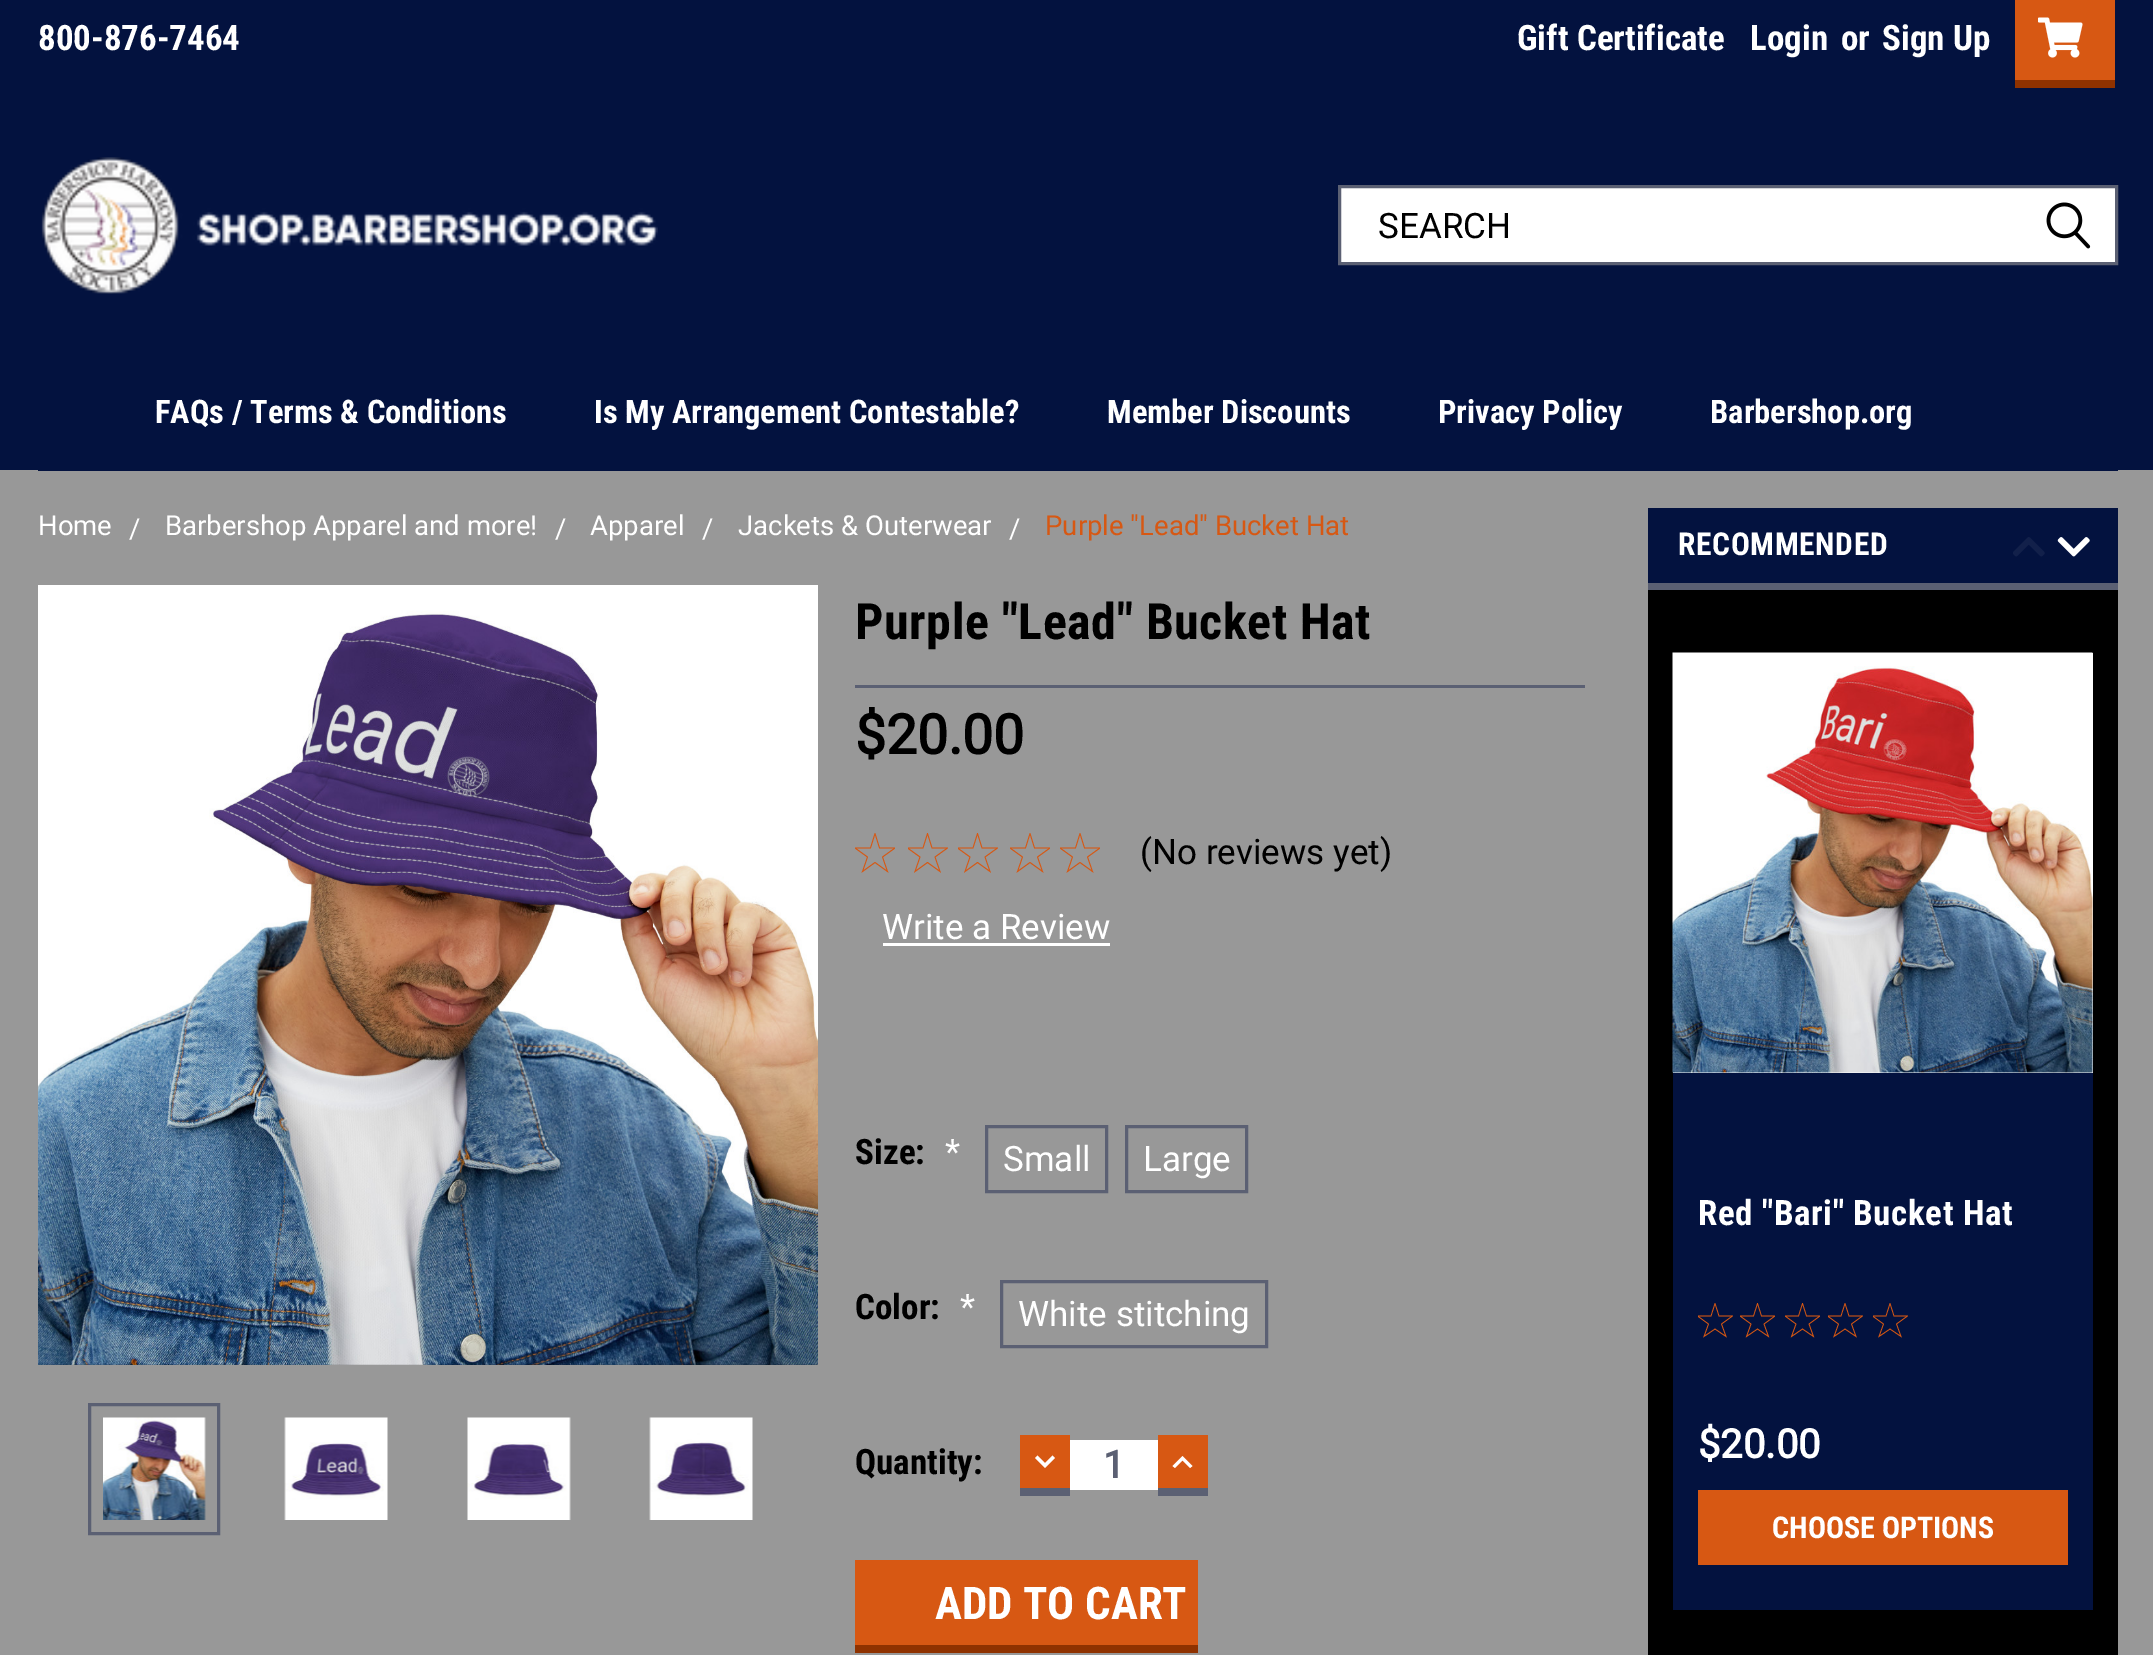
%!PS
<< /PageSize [2153 1655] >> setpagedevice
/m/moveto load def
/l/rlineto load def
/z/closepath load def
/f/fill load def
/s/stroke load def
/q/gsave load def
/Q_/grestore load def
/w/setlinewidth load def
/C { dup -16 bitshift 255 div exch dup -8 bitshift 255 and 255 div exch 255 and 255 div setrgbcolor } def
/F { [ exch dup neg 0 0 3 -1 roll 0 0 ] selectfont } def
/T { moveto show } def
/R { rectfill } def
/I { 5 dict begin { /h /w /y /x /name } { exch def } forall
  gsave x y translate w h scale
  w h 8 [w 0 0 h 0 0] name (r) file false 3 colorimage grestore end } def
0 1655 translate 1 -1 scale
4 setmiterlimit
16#989898 C
0 0 2153 1655 R
16#03123F C
0 0 2153 470 R
/RobotoCondensed-Bold 35 F
16#FFFFFF C
(800-876-7464) 38 50 T
(Gift Certificate) 1517 50 T
(Login) 1750 50 T
(or) 1841 50 T
(Sign Up) 1882 50 T
16#D75813 C
2015 0 100 80 R
16#8F3200 C
2015 80 100 8 R
(1.rgb) 2038 17 45 41 I
(2.rgb) 41 157 617 137 I
16#FFFFFF C
1339.5 186.5 m 777 0 l 0 77 l -777 0 l z q f Q_
16#5B6073 C
3 w
s
/Roboto-Regular 35 F
16#000000 C
(SEARCH) 1378 238 T
(3.rgb) 2046 202 45 47 I
16#03123F C
38 470 2080 1 R
/RobotoCondensed-Bold 32.5 F
16#FFFFFF C
(FAQs / Terms & Conditions) 155 423 T
(Is My Arrangement Contestable?) 594 423 T
(Member Discounts) 1107 423 T
(Privacy Policy) 1438 423 T
(Barbershop.org) 1710 423 T
/Roboto-Regular 27.5 F
(Home) 38 535 T
(/) 129 538 T
(Barbershop Apparel and more!) 165 535 T
(/) 555 538 T
(Apparel) 590 535 T
(/) 702 538 T
(Jackets & Outerwear) 738 535 T
(/) 1009 538 T
16#D75813 C
(Purple "Lead" Bucket Hat) 1045 535 T
(4.rgb) 38 585 780 780 I
16#5B6073 C
89.5 1404.5 129 129 rectstroke
(5.rgb) 103 1417 103 103 I
(6.rgb) 284 1417 104 103 I
(7.rgb) 467 1417 104 103 I
(8.rgb) 649 1417 104 103 I
855 685 730 3 R
/RobotoCondensed-Bold 50 F
16#000000 C
855 639 m .6 0 (Purple "Lead" Bucket Hat) ashow
/Roboto-Bold 55 F
($20.00) 855 754 T
q
855 833 40 40 rectclip
16#D75813 C
.8 w
875 833.5 m 4.5 14.5 l 15.5 0 l -12.5 9 l 5 14.5 l -12.5 -9 l -12.5 9 l 5 -14.5 l -12.5 -9 l 15.5 0 l z s
Q_
q
908 833 40 40 rectclip
16#D75813 C
.8 w
927.5 833.5 m 4.5 14.5 l 15.5 0 l -12.5 9 l 5 14.5 l -12.5 -9 l -12.5 9 l 5 -14.5 l -12.5 -9 l 15.5 0 l z s
Q_
q
958 833 40 40 rectclip
16#D75813 C
.8 w
977.5 833.5 m 4.5 14.5 l 15.5 0 l -12.5 9 l 5 14.5 l -12.5 -9 l -12.5 9 l 5 -14.5 l -12.5 -9 l 15.5 0 l z s
Q_
q
1010 833 40 40 rectclip
16#D75813 C
.8 w
1030 833.5 m 4.5 14.5 l 15.5 0 l -12.5 9 l 5 14.5 l -12.5 -9 l -12.5 9 l 5 -14.5 l -12.5 -9 l 15.5 0 l z s
Q_
q
1060 833 40 40 rectclip
16#D75813 C
.8 w
1080 833.5 m 4.5 14.5 l 15.5 0 l -12.5 9 l 5 14.5 l -12.5 -9 l -12.5 9 l 5 -14.5 l -12.5 -9 l 15.5 0 l z s
Q_
/Roboto-Regular 35 F
(\(No reviews yet\)) 1140 864 T
16#FFFFFF C
(Write a Review) 882 939 T
883 943 227 3 R
/RobotoCondensed-Bold 35 F
16#000000 C
(Size:) 855 1164 T
/RobotoCondensed-Regular 35 F
16#FFFFFF C
(*) 945 1164 T
16#5B6073 C
986.5 1126.5 120 65 rectstroke
/Roboto-Regular 35 F
16#FFFFFF C
(Small) 1003 1171 T
16#5B6073 C
1126.5 1126.5 120 65 rectstroke
16#FFFFFF C
(Large) 1143 1171 T
/RobotoCondensed-Bold 35 F
16#000000 C
(Color:) 855 1319 T
/RobotoCondensed-Regular 35 F
16#FFFFFF C
(*) 960 1319 T
16#5B6073 C
1001.5 1281.5 265 65 rectstroke
/Roboto-Regular 35 F
16#FFFFFF C
(White stitching) 1018 1326 T
/RobotoCondensed-Bold 35 F
16#000000 C
(Quantity:) 855 1474 T
16#D75813 C
1020 1435 50 53 R
16#5B6073 C
1020 1488 50 8 R
16#FFFFFF C
1037.5 1455.5 m 7.5 7.5 l 7.5 -7.5 l 2.5 2.5 l -10 10 l -10 -10 l z f
1070 1440 88 50 R
/Roboto-Bold 38 F
16#5B6073 C
(1) 1103 1478 T
16#D75813 C
1158 1435 50 53 R
16#5B6073 C
1158 1488 50 8 R
16#FFFFFF C
1175 1468 m 7.5 -7.5 l 7.5 7.5 l 2.5 -2 l -10 -10 l -10 10 l z f
16#D75813 C
855 1560 343 85 R
16#8F3200 C
855 1645 343 8 R
/RobotoCondensed-Bold 45 F
16#FFFFFF C
(ADD TO CART) 935 1619 T
16#03123F C
1648 508 470 75 R
16#5B6073 C
1648 583 470 7 R
/RobotoCondensed-Bold 31.5 F
16#FFFFFF C
1678 555 m .6 0 (RECOMMENDED) ashow
16#000000 C
1648 590 470 1065 R
(9.rgb) 2013 537 32 20 I
(10.rgb) 2057 537 33 20 I
16#03123F C
1673 1073 420 537 R
16#FFFFFF C
1673 653 420 420 R
(11.rgb) 1672 652 421 421 I
/RobotoCondensed-Bold 35 F
1698 1225 m .6 0 (Red "Bari" Bucket Hat) ashow
q
1698 1303 35 35 rectclip
16#D75813 C
.7 w
1715 1303.5 m 4 12.5 l 13.5 0 l -11 8 l 4.5 12.5 l -11 -7.5 l -11 7.5 l 4.5 -12.5 l -11 -8 l 13.5 0 l z s
Q_
q
1740 1303 35 35 rectclip
16#D75813 C
.7 w
1757.5 1303.5 m 4 12.5 l 13.5 0 l -11 8 l 4.5 12.5 l -11 -7.5 l -11 7.5 l 4.5 -12.5 l -11 -8 l 13.5 0 l z s
Q_
q
1785 1303 35 35 rectclip
16#D75813 C
.7 w
1802.5 1303.5 m 4 12.5 l 13.5 0 l -11 8 l 4.5 12.5 l -11 -7.5 l -11 7.5 l 4.5 -12.5 l -11 -8 l 13.5 0 l z s
Q_
q
1828 1303 35 35 rectclip
16#D75813 C
.7 w
1845 1303.5 m 4 12.5 l 13.5 0 l -11 8 l 4.5 12.5 l -11 -7.5 l -11 7.5 l 4.5 -12.5 l -11 -8 l 13.5 0 l z s
Q_
q
1873 1303 35 35 rectclip
16#D75813 C
.7 w
1890 1303.5 m 4 12.5 l 13.5 0 l -11 8 l 4.5 12.5 l -11 -7.5 l -11 7.5 l 4.5 -12.5 l -11 -8 l 13.5 0 l z s
Q_
/Roboto-Bold 40 F
($20.00) 1698 1458 T
16#D75813 C
1698 1490 370 75 R
/RobotoCondensed-Bold 30 F
16#FFFFFF C
(CHOOSE OPTIONS) 1772 1538 T
showpage
